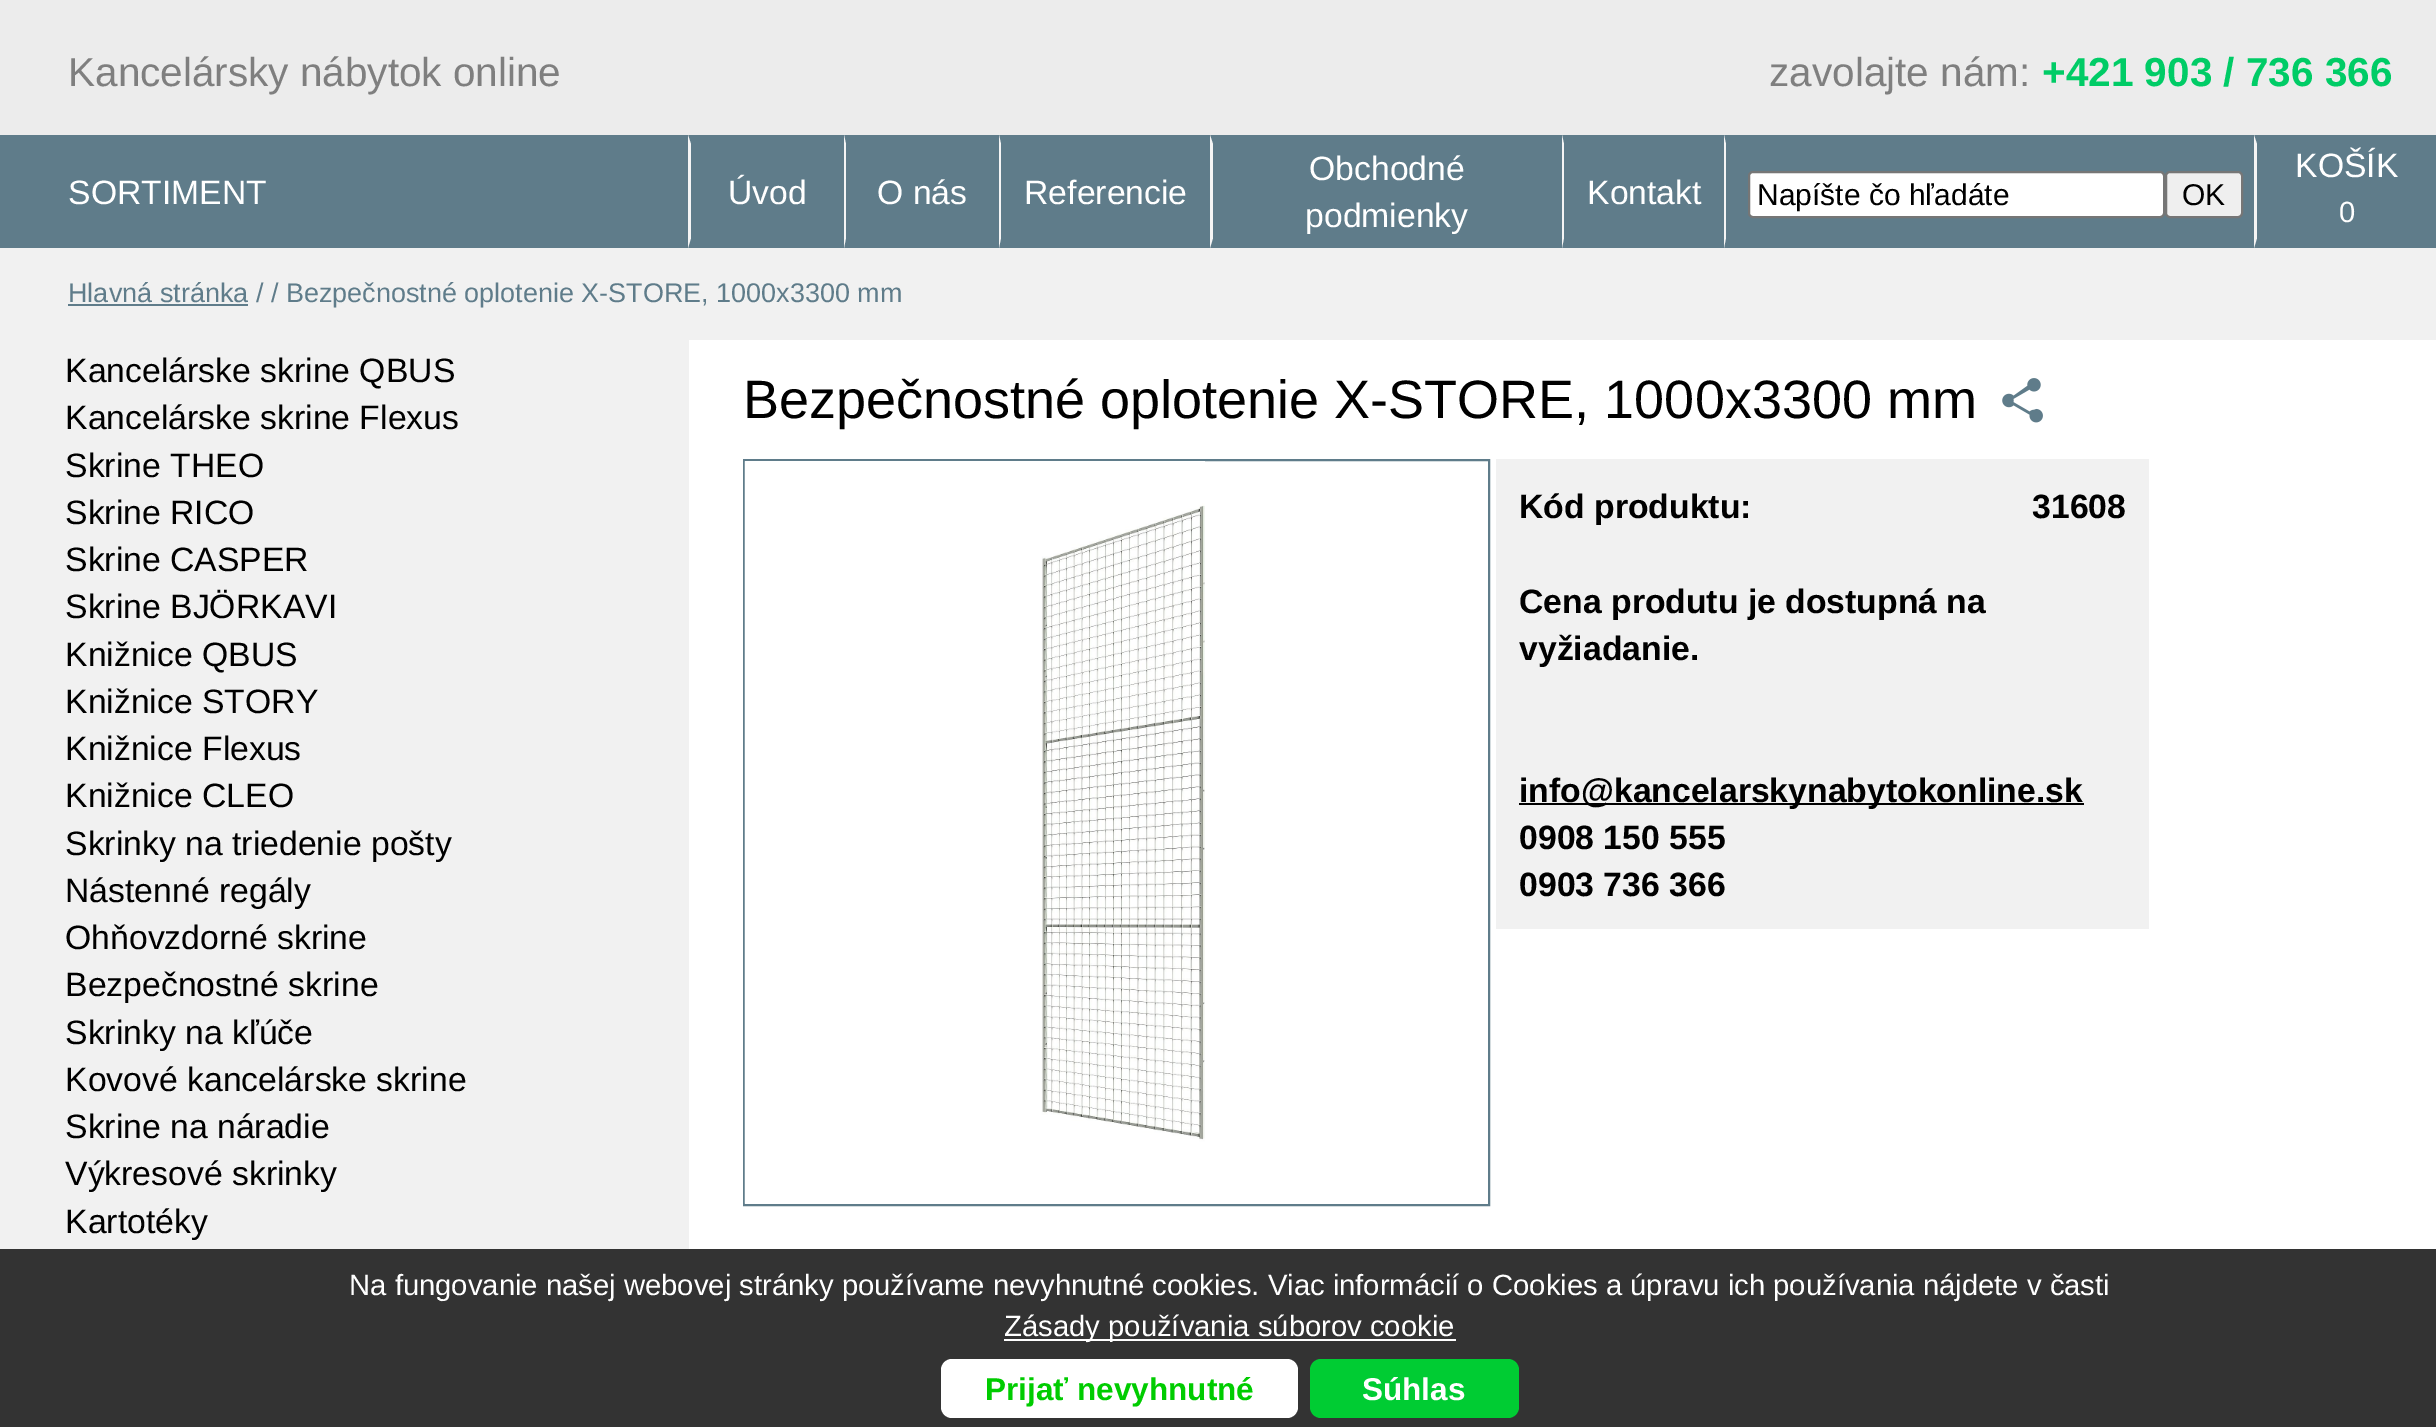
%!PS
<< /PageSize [2436 1427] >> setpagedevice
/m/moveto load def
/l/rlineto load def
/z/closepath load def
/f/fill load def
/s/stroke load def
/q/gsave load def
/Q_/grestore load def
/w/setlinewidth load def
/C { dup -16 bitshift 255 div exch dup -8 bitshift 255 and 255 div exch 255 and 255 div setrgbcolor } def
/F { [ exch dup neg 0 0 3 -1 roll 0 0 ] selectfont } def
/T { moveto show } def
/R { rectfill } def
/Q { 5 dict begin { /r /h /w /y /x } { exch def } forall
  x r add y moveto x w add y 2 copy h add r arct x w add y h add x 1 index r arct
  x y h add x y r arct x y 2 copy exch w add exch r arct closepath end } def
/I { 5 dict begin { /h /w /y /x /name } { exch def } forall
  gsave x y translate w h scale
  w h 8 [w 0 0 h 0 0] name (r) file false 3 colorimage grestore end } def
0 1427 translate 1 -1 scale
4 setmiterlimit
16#FFFFFF C
0 0 2436 1427 R
16#ECECEC C
0 0 2436 135 R
/LiberationSans-Regular 40.5 F
16#7F7F7F C
(Kancelársky nábytok online) 68 86 T
(zavolajte nám:) 1769 86 T
/LiberationSans-Bold 40.5 F
16#00CC66 C
(+421 903 / 736 366) 2042 86 T
16#5F7C8A C
0 135 2436 113 R
/LiberationSans-Regular 33.75 F
16#FFFFFF C
(SORTIMENT) 68 204 T
16#F5F5F5 C
688 248 m 0 -113 l 3 9 l 0 94 l z f
16#FFFFFF C
(Úvod) 728 204 T
16#F5F5F5 C
844 248 m 0 -113 l 2 9 l 0 94 l z f
16#FFFFFF C
(O nás) 877 204 T
16#F5F5F5 C
999 248 m 0 -113 l 2 9 l 0 94 l z f
16#FFFFFF C
(Referencie) 1024 204 T
16#F5F5F5 C
1210 248 m 0 -113 l 3 9 l 0 94 l z f
16#FFFFFF C
(Obchodné) 1309 180 T
(podmienky) 1305 227 T
16#F5F5F5 C
1562 248 m 0 -113 l 2 9 l 0 94 l z f
16#FFFFFF C
(Kontakt) 1587 204 T
16#F5F5F5 C
1724 248 m 0 -113 l 2 9 l 0 94 l z f
16#FFFFFF C
1749 172 415 45 4 Q q f Q_
16#767676 C
2 w
s
/LiberationSans-Regular 30 F
16#000000 C
(Napíšte čo hľadáte) 1757 205 T
16#EFEFEF C
2166 172 76 45 4 Q q f Q_
16#767676 C
s
16#000000 C
(OK) 2182 205 T
16#F5F5F5 C
2254 248 m 0 -113 l 3 9 l 0 94 l z f
/LiberationSans-Regular 33.75 F
16#FFFFFF C
(KOŠÍK) 2295 177 T
/LiberationSans-Regular 29.25 F
(0) 2339 222 T
16#F1F1F1 C
0 248 2436 92 R
16#5F7C8A C
68 304 180 2 R
/LiberationSans-Regular 27 F
(Hlavná stránka / / Bezpečnostné oplotenie X-STORE, 1000x3300 mm) 68 302 T
16#F1F1F1 C
0 340 689 909 R
/LiberationSans-Regular 33.75 F
16#000000 C
(Kancelárske skrine QBUS) 65 382 T
(Kancelárske skrine Flexus) 65 429 T
(Skrine THEO) 65 477 T
(Skrine RICO) 65 524 T
(Skrine CASPER) 65 571 T
(Skrine BJÖRKAVI) 65 618 T
(Knižnice QBUS) 65 666 T
(Knižnice STORY) 65 713 T
(Knižnice Flexus) 65 760 T
(Knižnice CLEO) 65 807 T
(Skrinky na triedenie pošty) 65 855 T
(Nástenné regály) 65 902 T
(Ohňovzdorné skrine) 65 949 T
(Bezpečnostné skrine) 65 996 T
(Skrinky na kľúče) 65 1044 T
(Kovové kancelárske skrine) 65 1091 T
(Skrine na náradie) 65 1138 T
(Výkresové skrinky) 65 1185 T
(Kartotéky) 65 1233 T
/LiberationSans-Regular 54 F
(Bezpečnostné oplotenie X-STORE, 1000x3300 mm) 743 418 T
(1.rgb) 2002 378 41 45 I
16#5F7C8A C
744 460 745 745 rectstroke
(2.rgb) 744 461 461 743 I
16#F1F1F1 C
1496 459 653 470 R
/LiberationSans-Bold 33.75 F
16#000000 C
(Kód produktu:) 1519 518 T
(31608) 2032 518 T
(Cena produtu je dostupná na) 1519 613 T
(vyžiadanie.) 1519 660 T
1519 803 565 2 R
(info@kancelarskynabytokonline.sk) 1519 802 T
(0908 150 555) 1519 849 T
(0903 736 366) 1519 896 T
16#333333 C
0 1249 2436 178 R
/LiberationSans-Regular 29.25 F
16#FFFFFF C
(Na fungovanie našej webovej stránky používame nevyhnutné cookies. Viac informácií o Cookies a úpravu ich používania nájdete v časti) 349 1295 T
1004 1339 452 2 R
(Zásady používania súborov cookie) 1004 1336 T
941 1359 357 59 11 Q f
/LiberationSans-Bold 31.5 F
16#00CC00 C
(Prijať nevyhnutné) 985 1400 T
16#00CC33 C
1310 1359 209 59 11 Q f
16#FFFFFF C
(Súhlas) 1362 1400 T
showpage
